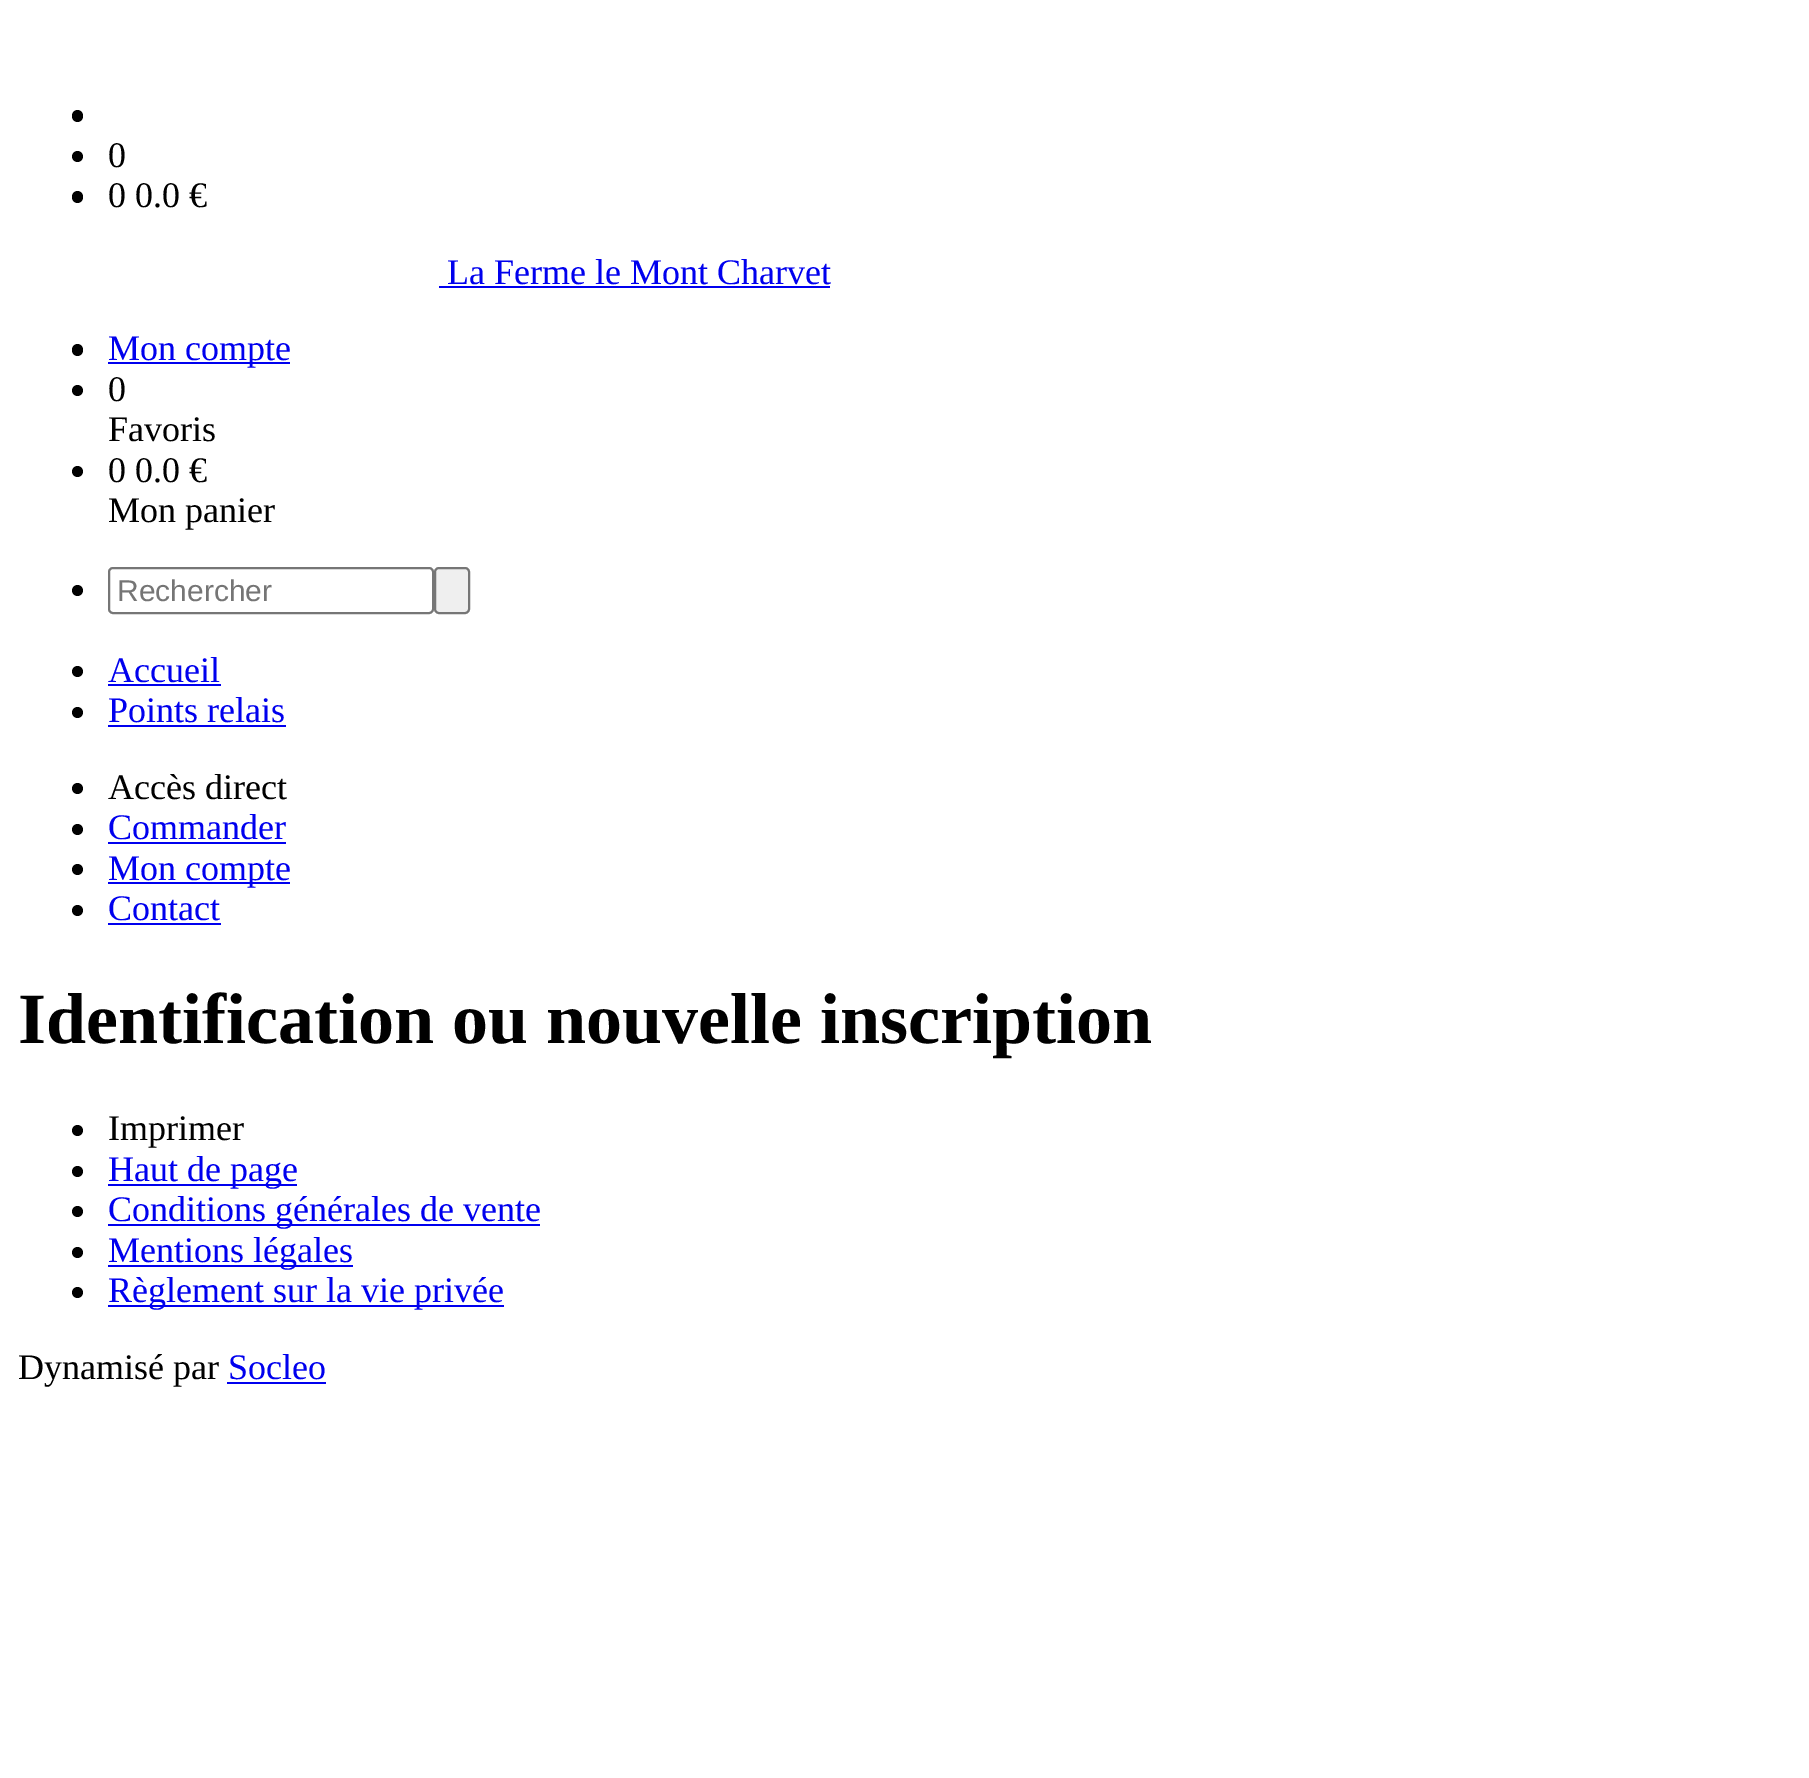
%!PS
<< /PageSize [1809 1778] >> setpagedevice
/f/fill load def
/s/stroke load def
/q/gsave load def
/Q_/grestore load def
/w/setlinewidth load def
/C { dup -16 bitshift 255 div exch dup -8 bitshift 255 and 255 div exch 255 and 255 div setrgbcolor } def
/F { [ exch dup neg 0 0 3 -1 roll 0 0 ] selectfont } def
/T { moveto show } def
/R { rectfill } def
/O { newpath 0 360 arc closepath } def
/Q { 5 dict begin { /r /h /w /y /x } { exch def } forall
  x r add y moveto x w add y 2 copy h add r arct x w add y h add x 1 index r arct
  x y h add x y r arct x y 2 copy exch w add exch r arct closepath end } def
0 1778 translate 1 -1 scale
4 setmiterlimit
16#FFFFFF C
0 0 1809 1778 R
16#000000 C
72 110 11 12 5.5 Q f
77.5 156.5 5.5 O f
/LiberationSerif-Regular 36 F
(0) 108 167 T
72 191 11 12 5.5 Q f
(0 0.0 €) 108 207 T
16#0000EE C
(La Ferme le Mont Charvet) 447 284 T
439 286 391 2 R
16#000000 C
72 344 11 12 5.5 Q f
16#0000EE C
108 362 182 2 R
(Mon compte) 108 360 T
16#000000 C
77.5 390.5 5.5 O f
(0) 108 401 T
(Favoris) 108 441 T
77.5 471.5 5.5 O f
(0 0.0 €) 108 482 T
(Mon panier) 108 522 T
77.5 590.5 5.5 O f
16#767676 C
2 w
109 568 324 45 4 Q s
/LiberationSans-Regular 30 F
16#757575 C
(Rechercher) 117 601 T
16#EFEFEF C
435 568 34 45 4 Q q f Q_
16#767676 C
s
16#000000 C
77.5 671.5 5.5 O f
/LiberationSerif-Regular 36 F
16#0000EE C
(Accueil) 108 682 T
108 684 113 2 R
16#000000 C
77.5 712.5 5.5 O f
16#0000EE C
(Points relais) 108 722 T
108 725 178 2 R
16#000000 C
77.5 788.5 5.5 O f
(Accès direct) 108 799 T
77.5 829.5 5.5 O f
16#0000EE C
(Commander) 108 839 T
108 842 178 2 R
16#000000 C
77.5 869.5 5.5 O f
16#0000EE C
108 882 182 2 R
(Mon compte) 108 880 T
16#000000 C
77.5 910.5 5.5 O f
16#0000EE C
(Contact) 108 920 T
108 923 113 2 R
/LiberationSerif-Bold 72 F
16#000000 C
(Identification ou nouvelle inscription) 18 1043 T
77.5 1130.5 5.5 O f
/LiberationSerif-Regular 36 F
(Imprimer) 108 1140 T
77.5 1171.5 5.5 O f
16#0000EE C
108 1184 189 2 R
(Haut de page) 108 1181 T
16#000000 C
77.5 1211.5 5.5 O f
16#0000EE C
108 1224 432 2 R
(Conditions générales de vente) 108 1221 T
16#000000 C
77.5 1252.5 5.5 O f
16#0000EE C
108 1265 245 2 R
(Mentions légales) 108 1262 T
16#000000 C
77.5 1292.5 5.5 O f
16#0000EE C
108 1305 396 2 R
(Règlement sur la vie privée) 108 1302 T
16#000000 C
(Dynamisé par) 18 1379 T
16#0000EE C
(Socleo) 228 1379 T
227 1382 99 2 R
showpage
